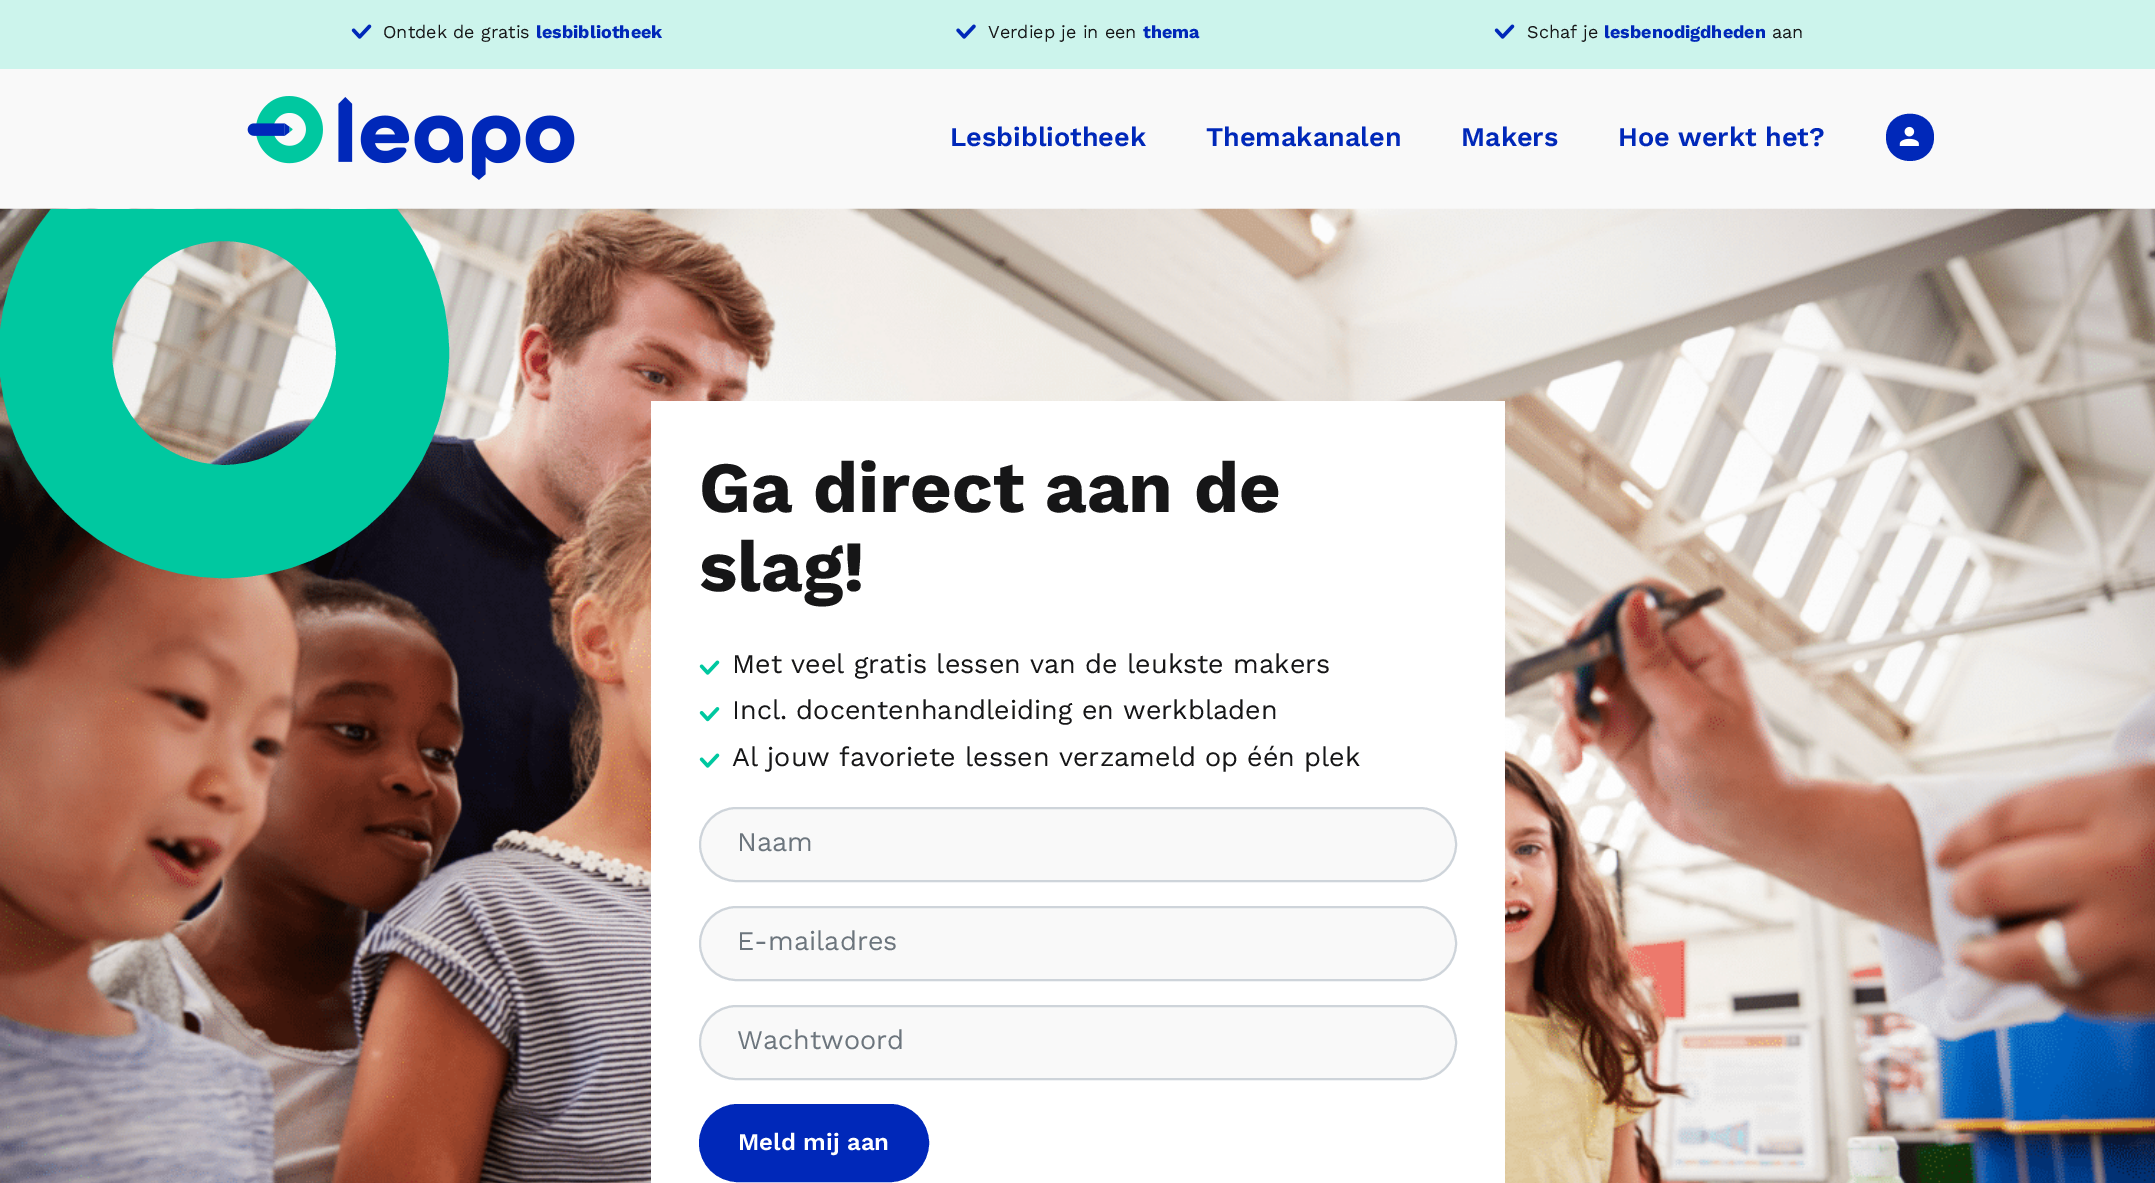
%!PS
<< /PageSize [2155 1183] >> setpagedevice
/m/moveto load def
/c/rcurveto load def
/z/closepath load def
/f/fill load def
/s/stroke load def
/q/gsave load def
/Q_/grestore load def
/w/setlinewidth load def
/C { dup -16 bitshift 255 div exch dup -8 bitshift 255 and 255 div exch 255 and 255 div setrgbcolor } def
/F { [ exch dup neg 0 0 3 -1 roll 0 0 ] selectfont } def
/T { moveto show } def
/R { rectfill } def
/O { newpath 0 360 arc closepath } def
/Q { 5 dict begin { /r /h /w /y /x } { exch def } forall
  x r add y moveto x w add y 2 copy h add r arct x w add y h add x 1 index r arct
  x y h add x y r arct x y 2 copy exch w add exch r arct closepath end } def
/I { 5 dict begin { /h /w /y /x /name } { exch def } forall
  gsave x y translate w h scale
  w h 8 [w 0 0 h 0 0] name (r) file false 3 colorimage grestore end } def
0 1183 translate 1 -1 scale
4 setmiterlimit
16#F9F9F9 C
0 0 2155 1183 R
16#CCF4EC C
0 0 2155 69 R
(1.rgb) 351 24 21 15 I
/WorkSans-Regular 18 F
16#161617 C
(Ontdek de gratis) 383 38 T
/WorkSans-Bold 18 F
16#0028B9 C
(lesbibliotheek) 536 38 T
(2.rgb) 956 24 20 15 I
/WorkSans-Regular 18 F
16#161617 C
(Verdiep je in een) 988 38 T
/WorkSans-Bold 18 F
16#0028B9 C
(thema) 1143 38 T
(1.rgb) 1494 24 21 15 I
/WorkSans-Regular 18 F
16#161617 C
(Schaf je) 1527 38 T
/WorkSans-Bold 18 F
16#0028B9 C
(lesbenodigdheden) 1604 38 T
/WorkSans-Regular 18 F
16#161617 C
(aan) 1772 38 T
(3.rgb) 247 96 328 84 I
/WorkSans-SemiBold 27 F
16#0028B9 C
(Lesbibliotheek) 950 146 T
(Themakanalen) 1206 146 T
(Makers) 1461 146 T
(Hoe werkt het?) 1618 146 T
1934 137 m 0 32 -48 32 -48 0 c 0 -31 48 -31 48 0 c z f
(4.rgb) 1899 126 20 20 I
(5.rgb) 0 208 2155 975 I
q
0 209 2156 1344 rectclip
16#00C8A0 C
113 w
224 353 168.5 O s
Q_
16#FFFFFF C
651 401 854 782 R
/WorkSans-Bold 72 F
16#161617 C
(Ga direct aan de) 699 512 T
(slag!) 699 591 T
(6.rgb) 699 660 21 15 I
/WorkSans-Regular 27 F
(Met veel gratis lessen van de leukste makers) 732 673 T
(7.rgb) 699 707 21 15 I
(Incl. docentenhandleiding en werkbladen) 732 719 T
(6.rgb) 699 753 21 15 I
(Al jouw favoriete lessen verzameld op één plek) 732 766 T
16#F9F9F9 C
700 808 756 73 36.5 Q q f Q_
16#CED4DA C
2 w
s
16#6C757D C
(Naam) 737 851 T
16#F9F9F9 C
700 907 756 73 36.5 Q q f Q_
16#CED4DA C
s
16#6C757D C
(E-mailadres) 737 950 T
16#F9F9F9 C
700 1006 756 73 36.5 Q q f Q_
16#CED4DA C
s
16#6C757D C
(Wachtwoord) 737 1049 T
16#0028B9 C
700.5 1105.5 227 75 37.5 Q q f Q_
3 w
s
/WorkSans-SemiBold 24 F
16#FFFFFF C
(Meld mij aan) 738 1150 T
showpage
